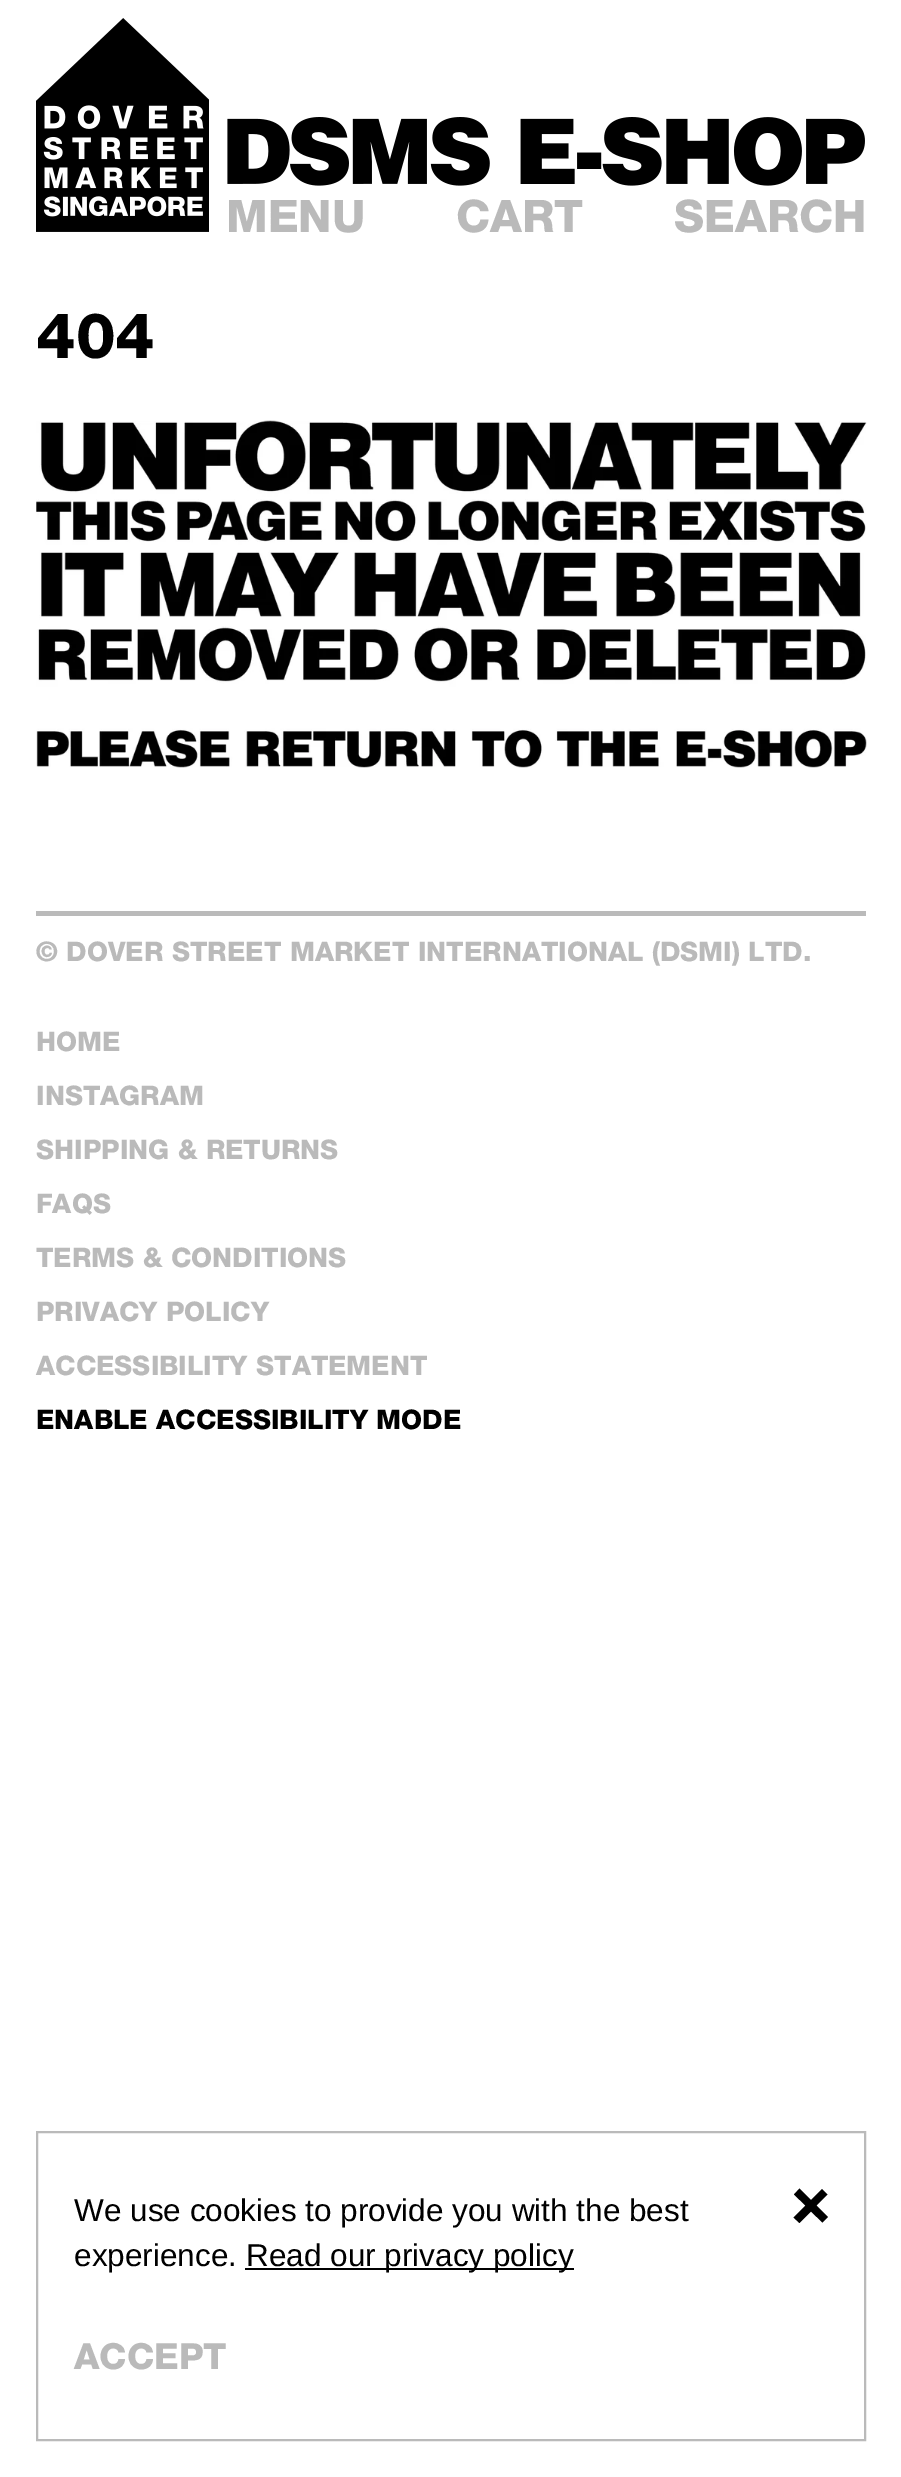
%!PS
<< /PageSize [901 2477] >> setpagedevice
/m/moveto load def
/l/rlineto load def
/z/closepath load def
/f/fill load def
/w/setlinewidth load def
/C { dup -16 bitshift 255 div exch dup -8 bitshift 255 and 255 div exch 255 and 255 div setrgbcolor } def
/F { [ exch dup neg 0 0 3 -1 roll 0 0 ] selectfont } def
/T { moveto show } def
/R { rectfill } def
/I { 5 dict begin { /h /w /y /x /name } { exch def } forall
  gsave x y translate w h scale
  w h 8 [w 0 0 h 0 0] name (r) file false 3 colorimage grestore end } def
0 2477 translate 1 -1 scale
4 setmiterlimit
16#FFFFFF C
0 0 901 2477 R
(1.rgb) 36 18 173 214 I
(2.rgb) 227 117 638 69 I
/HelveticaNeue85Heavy-Black 45 F
16#BABABA C
(MENU) 226 232 T
(CART) 456 232 T
(SEARCH) 674 232 T
/HelveticaNeue85Heavy-Black 63 F
16#000000 C
(404) 36 358 T
(3.rgb) 36 420 831 348 I
16#BABABA C
36 911 830 5 R
/HelveticaNeue85Heavy-Black 27 F
(© DOVER STREET MARKET INTERNATIONAL \(DSMI\) LTD.) 36 961 T
(HOME) 36 1051 T
(INSTAGRAM) 36 1105 T
(SHIPPING & RETURNS) 36 1159 T
(FAQS) 36 1213 T
(TERMS & CONDITIONS) 36 1267 T
(PRIVACY POLICY) 36 1321 T
(ACCESSIBILITY STATEMENT) 36 1375 T
16#000000 C
(ENABLE ACCESSIBILITY MODE) 36 1429 T
16#BABABA C
2 w
37 2132 828 308 rectstroke
/LiberationSans-Regular 31.5 F
16#000000 C
(We use cookies to provide you with the best) 74 2221 T
(experience.) 74 2266 T
245 2268 329 2 R
(Read our privacy policy) 246 2266 T
799.5 2188.5 m 11.5 11.5 l 11 -11 l 5.5 5.5 l -11 11 l 11.5 11.5 l -5.5 5.5 l -11.5 -11 l -11.5 11.5 l -6 -5.5 l 12 -12 l -11.5 -11 l z f
/HelveticaNeue85Heavy-Black 36 F
16#BABABA C
(ACCEPT) 74 2369 T
showpage
